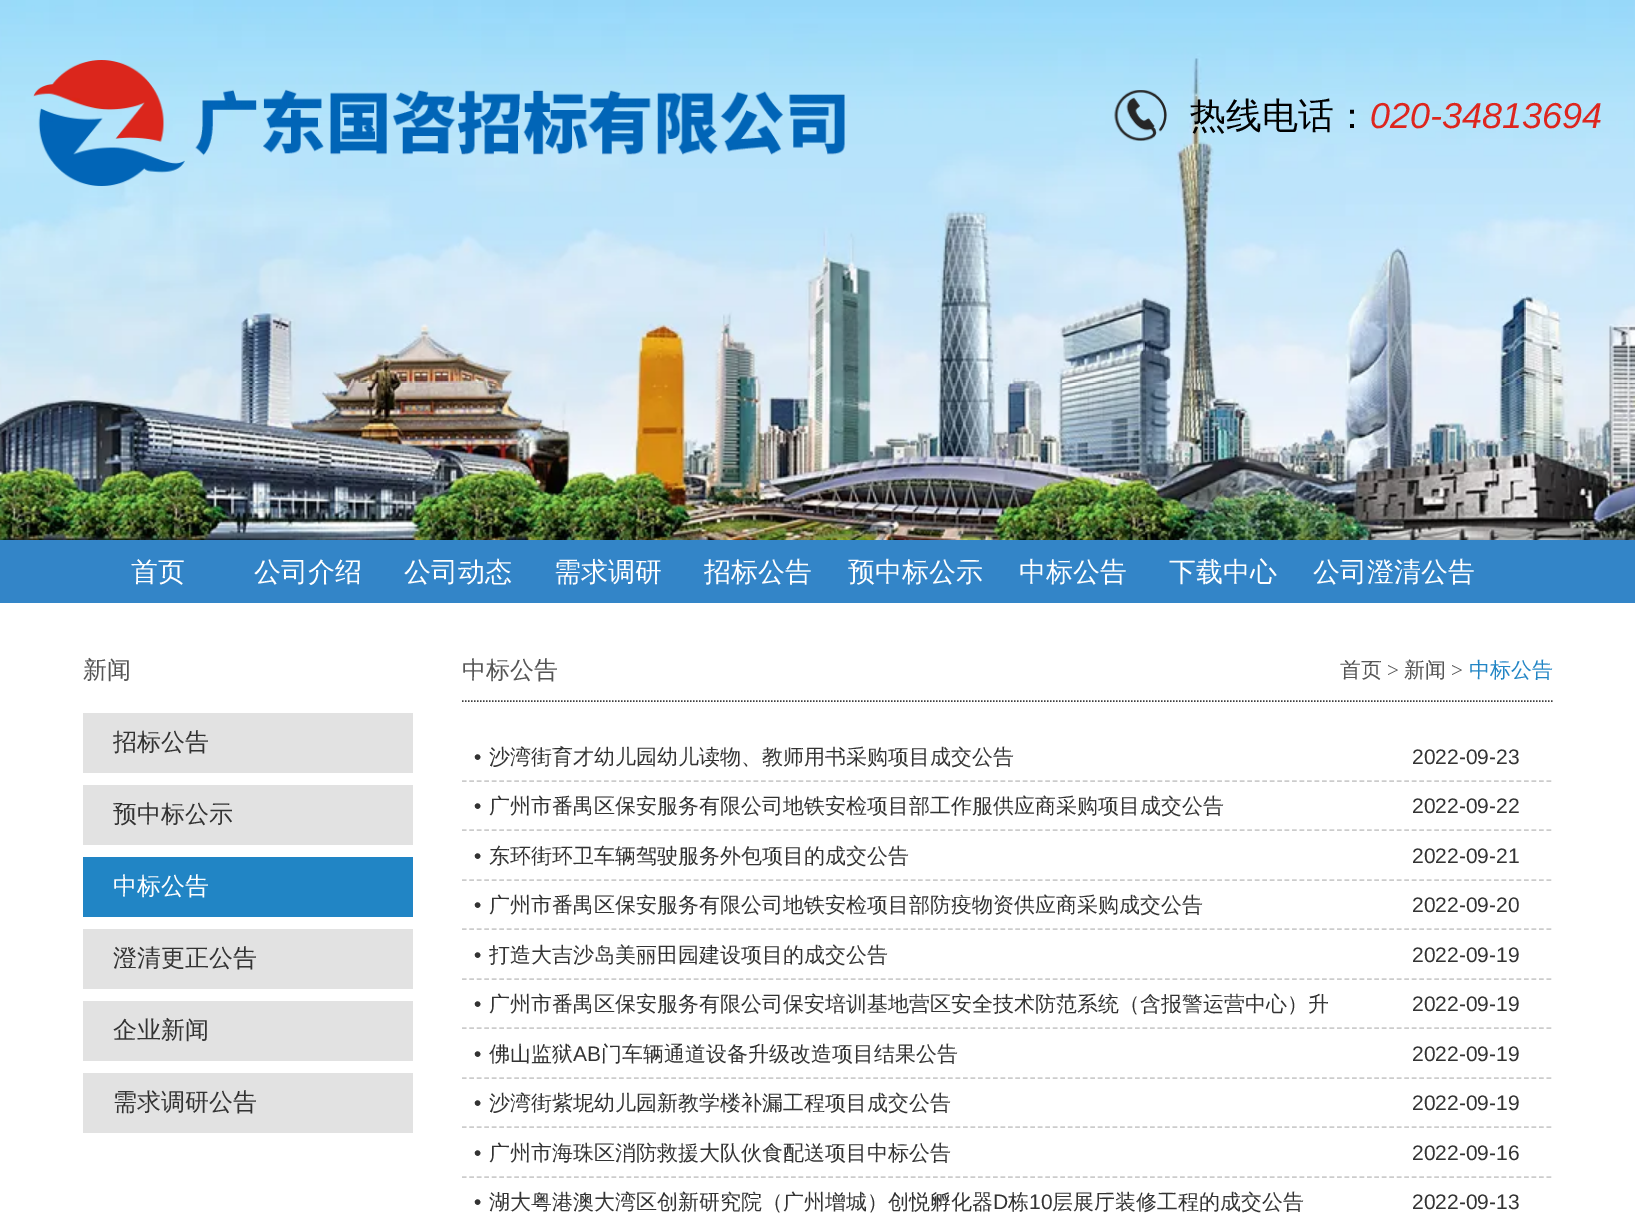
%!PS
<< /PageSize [1635 1222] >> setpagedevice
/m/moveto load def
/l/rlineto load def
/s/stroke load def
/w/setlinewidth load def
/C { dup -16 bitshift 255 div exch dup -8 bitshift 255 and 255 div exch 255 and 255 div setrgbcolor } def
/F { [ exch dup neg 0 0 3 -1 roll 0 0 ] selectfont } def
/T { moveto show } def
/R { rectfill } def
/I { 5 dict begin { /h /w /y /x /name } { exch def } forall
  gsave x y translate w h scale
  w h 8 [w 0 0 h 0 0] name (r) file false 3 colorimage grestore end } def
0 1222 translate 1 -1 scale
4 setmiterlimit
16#FFFFFF C
0 0 1635 1222 R
(1.rgb) 0 0 1635 540 I
(2.rgb) 33 60 812 126 I
(3.rgb) 1114 90 53 51 I
/WenQuanYiZenHei-Medium 36 F
16#000000 C
(热线电话：) 1190 128 T
/LiberationSans-Italic 36 F
16#DD261E C
(020-34813694) 1370 128 T
16#3385C8 C
0 540 1635 63 R
/WenQuanYiZenHei-Medium 27 F
16#FFFFFF C
(首页) 131 581 T
(公司介绍) 254 581 T
(公司动态) 404 581 T
(需求调研) 554 581 T
(招标公告) 704 581 T
(预中标公示) 848 581 T
(中标公告) 1019 581 T
(下载中心) 1169 581 T
(公司澄清公告) 1313 581 T
/WenQuanYiZenHei-Medium 24 F
16#555555 C
(新闻) 83 678 T
16#E2E2E2 C
83 713 330 60 R
16#333333 C
(招标公告) 113 750 T
16#E2E2E2 C
83 785 330 60 R
16#333333 C
(预中标公示) 113 822 T
16#2185C5 C
83 857 330 60 R
16#FFFFFF C
(中标公告) 113 894 T
16#E2E2E2 C
83 929 330 60 R
16#333333 C
(澄清更正公告) 113 966 T
16#E2E2E2 C
83 1001 330 60 R
16#333333 C
(企业新闻) 113 1038 T
16#E2E2E2 C
83 1073 330 60 R
16#333333 C
(需求调研公告) 113 1110 T
16#3D3D3D C
1.5 w
[1.5 1.5] 0 setdash
462 701 m 1090.5 0 l s
16#555555 C
(中标公告) 462 678 T
/WenQuanYiZenHei-Medium 21 F
(首页) 1340 677 T
/LiberationSerif-Regular 21 F
(>) 1387 677 T
/WenQuanYiZenHei-Medium 21 F
(新闻) 1404 677 T
/LiberationSerif-Regular 21 F
(>) 1451 677 T
/WenQuanYiZenHei-Medium 21 F
16#2185C5 C
(中标公告) 1469 677 T
16#CCCCCC C
[4.5 2.98] 0 setdash
462 781 m 1090.5 0 l s
/LiberationSans-Regular 21 F
16#333333 C
(•) 474 764 T
/WenQuanYiZenHei-Medium 21 F
(沙湾街育才幼儿园幼儿读物、教师用书采购项目成交公告) 489 764 T
/LiberationSans-Regular 21 F
(2022-09-23) 1412 764 T
16#CCCCCC C
462 830 m 1090.5 0 l s
16#333333 C
(•) 474 813 T
/WenQuanYiZenHei-Medium 21 F
(广州市番禺区保安服务有限公司地铁安检项目部工作服供应商采购项目成交公告) 489 813 T
/LiberationSans-Regular 21 F
(2022-09-22) 1412 813 T
16#CCCCCC C
462 880 m 1090.5 0 l s
16#333333 C
(•) 474 863 T
/WenQuanYiZenHei-Medium 21 F
(东环街环卫车辆驾驶服务外包项目的成交公告) 489 863 T
/LiberationSans-Regular 21 F
(2022-09-21) 1412 863 T
16#CCCCCC C
462 929 m 1090.5 0 l s
16#333333 C
(•) 474 912 T
/WenQuanYiZenHei-Medium 21 F
(广州市番禺区保安服务有限公司地铁安检项目部防疫物资供应商采购成交公告) 489 912 T
/LiberationSans-Regular 21 F
(2022-09-20) 1412 912 T
16#CCCCCC C
462 979 m 1090.5 0 l s
16#333333 C
(•) 474 962 T
/WenQuanYiZenHei-Medium 21 F
(打造大吉沙岛美丽田园建设项目的成交公告) 489 962 T
/LiberationSans-Regular 21 F
(2022-09-19) 1412 962 T
16#CCCCCC C
462 1028 m 1090.5 0 l s
16#333333 C
(•) 474 1011 T
/WenQuanYiZenHei-Medium 21 F
(广州市番禺区保安服务有限公司保安培训基地营区安全技术防范系统（含报警运营中心）升) 489 1011 T
/LiberationSans-Regular 21 F
(2022-09-19) 1412 1011 T
16#CCCCCC C
462 1078 m 1090.5 0 l s
16#333333 C
(•) 474 1061 T
/WenQuanYiZenHei-Medium 21 F
(佛山监狱) 489 1061 T
/LiberationSans-Regular 21 F
(AB) 573 1061 T
/WenQuanYiZenHei-Medium 21 F
(门车辆通道设备升级改造项目结果公告) 601 1061 T
/LiberationSans-Regular 21 F
(2022-09-19) 1412 1061 T
16#CCCCCC C
462 1127 m 1090.5 0 l s
16#333333 C
(•) 474 1110 T
/WenQuanYiZenHei-Medium 21 F
(沙湾街紫坭幼儿园新教学楼补漏工程项目成交公告) 489 1110 T
/LiberationSans-Regular 21 F
(2022-09-19) 1412 1110 T
16#CCCCCC C
462 1177 m 1090.5 0 l s
16#333333 C
(•) 474 1160 T
/WenQuanYiZenHei-Medium 21 F
(广州市海珠区消防救援大队伙食配送项目中标公告) 489 1160 T
/LiberationSans-Regular 21 F
(2022-09-16) 1412 1160 T
(•) 474 1209 T
/WenQuanYiZenHei-Medium 21 F
(湖大粤港澳大湾区创新研究院（广州增城）创悦孵化器) 489 1209 T
/LiberationSans-Regular 21 F
(D) 993 1209 T
/WenQuanYiZenHei-Medium 21 F
(栋) 1008 1209 T
/LiberationSans-Regular 21 F
(10) 1029 1209 T
/WenQuanYiZenHei-Medium 21 F
(层展厅装修工程的成交公告) 1052 1209 T
/LiberationSans-Regular 21 F
(2022-09-13) 1412 1209 T
showpage
